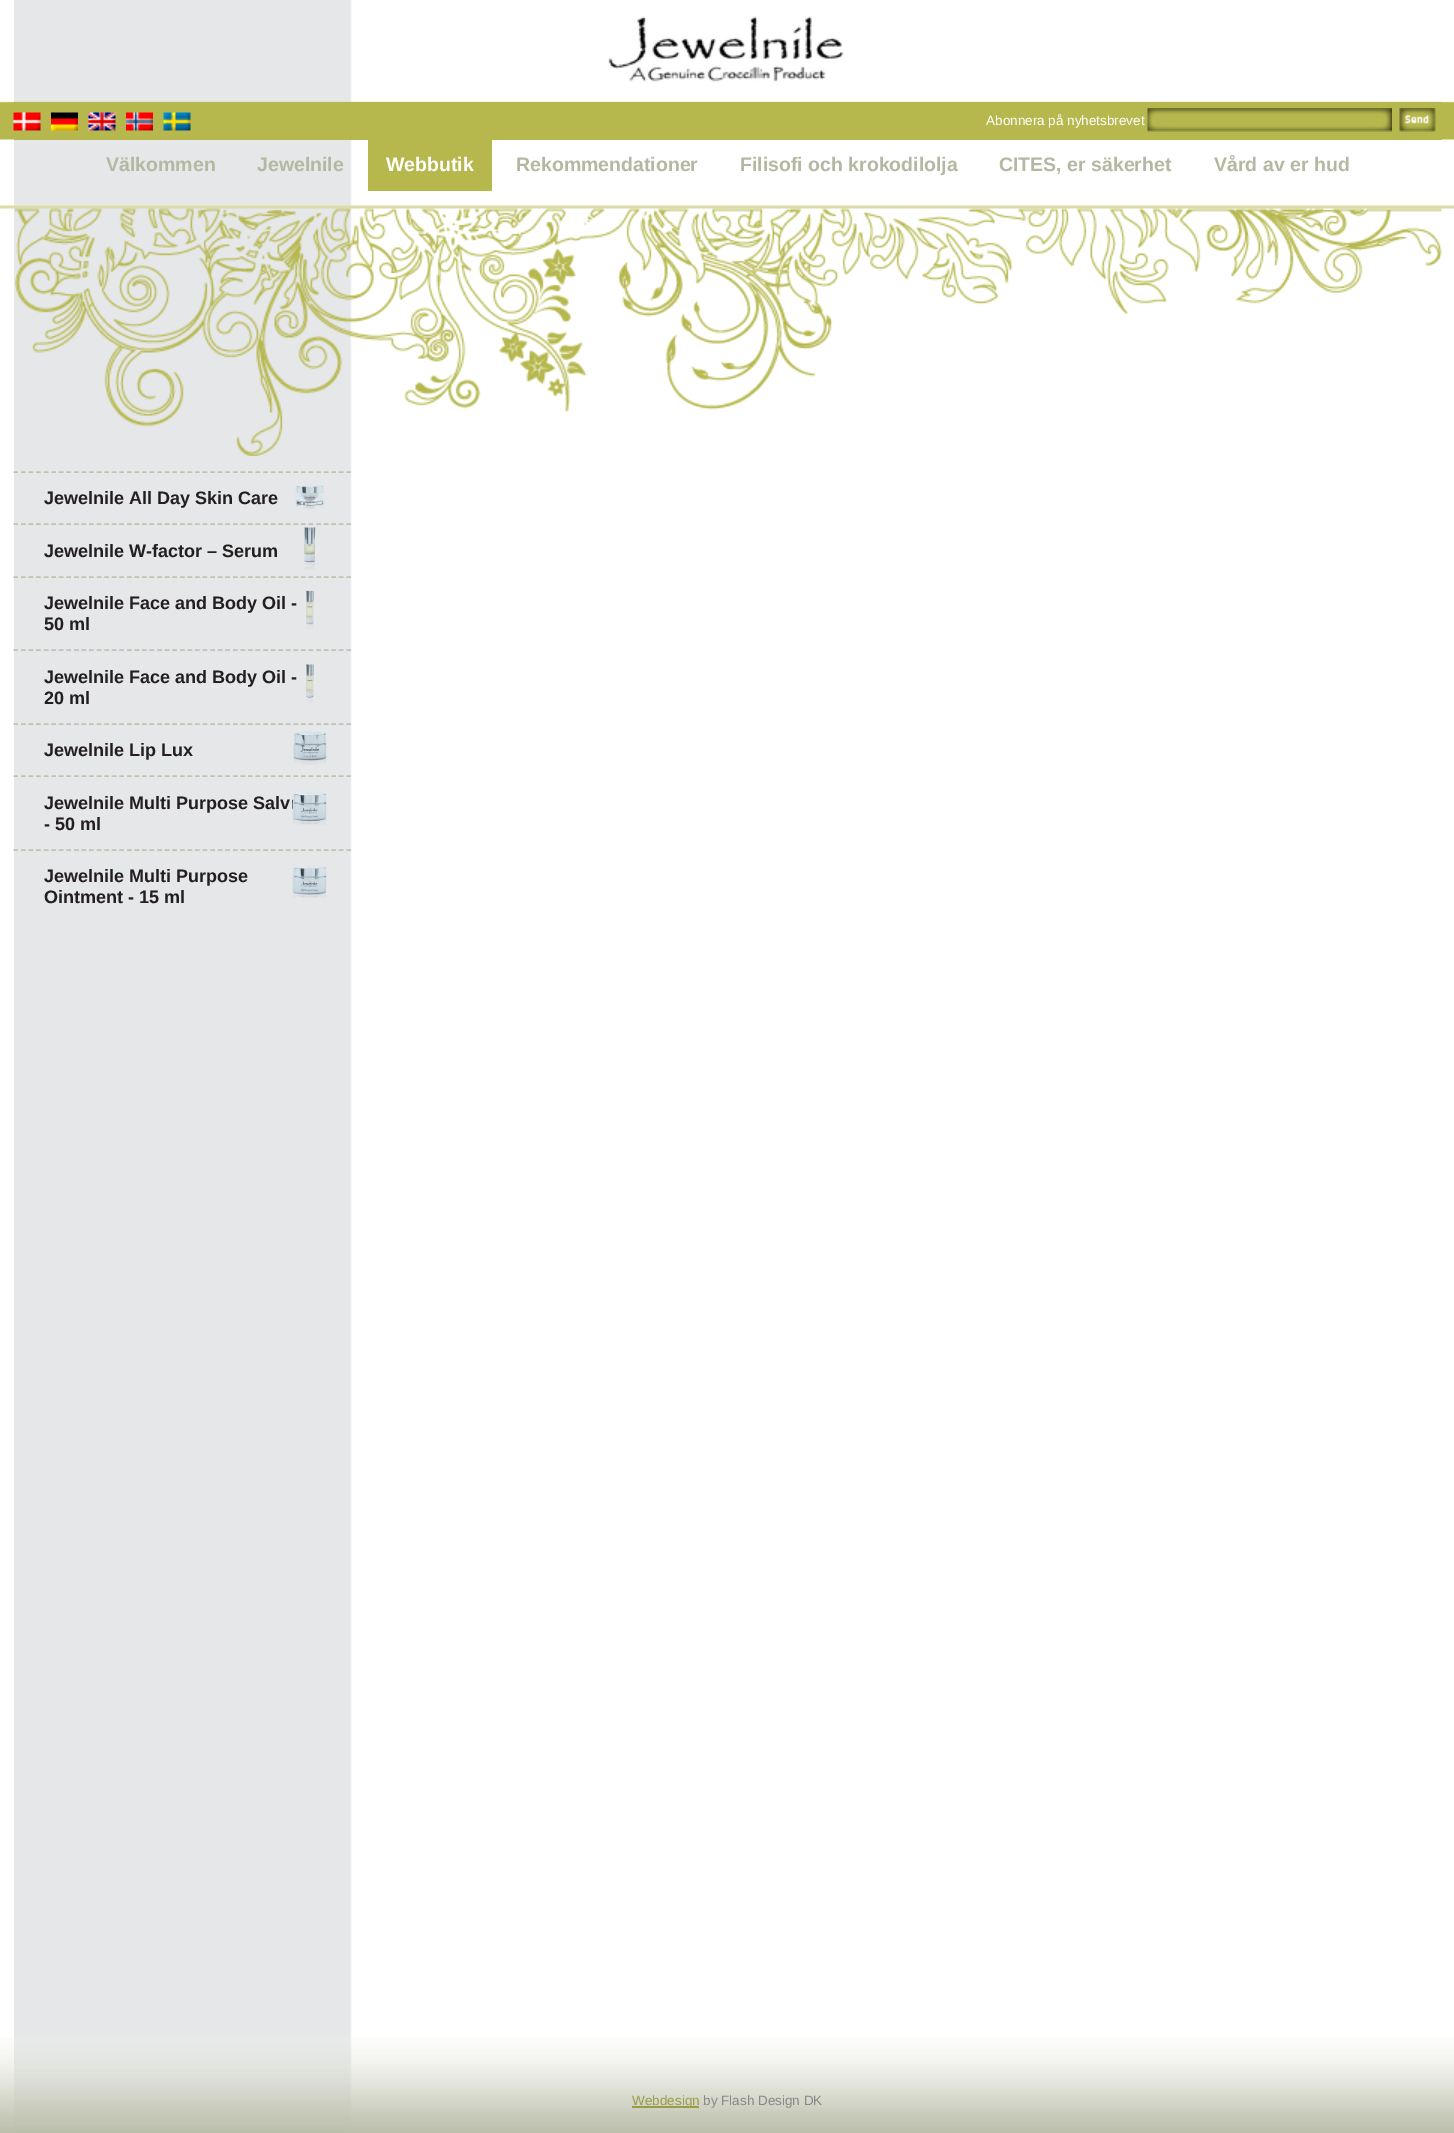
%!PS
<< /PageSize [1454 2133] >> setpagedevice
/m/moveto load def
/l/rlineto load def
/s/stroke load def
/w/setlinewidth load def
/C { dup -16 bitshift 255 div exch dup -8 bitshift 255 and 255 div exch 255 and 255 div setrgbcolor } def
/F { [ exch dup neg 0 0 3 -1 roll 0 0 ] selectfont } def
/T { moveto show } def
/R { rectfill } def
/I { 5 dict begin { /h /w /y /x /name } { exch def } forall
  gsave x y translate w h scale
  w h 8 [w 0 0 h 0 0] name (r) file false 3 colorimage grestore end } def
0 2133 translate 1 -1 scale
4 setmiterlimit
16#FFFFFF C
0 0 1454 2133 R
(1.rgb) 14 0 338 2133 I
(2.rgb) 0 101 1454 108 I
(3.rgb) 15 208 1427 248 I
(4.rgb) 608 16 236 66 I
16#B6B84E C
14 102 1428 38 R
(5.rgb) 13 112 28 19 I
(6.rgb) 51 112 27 19 I
(7.rgb) 88 112 28 19 I
(8.rgb) 126 112 27 19 I
(9.rgb) 163 112 28 19 I
/LiberationSans-Regular 13.5 F
16#FFFFFF C
(Abonnera på nyhetsbrevet) 986 125 T
(10.rgb) 1147 108 245 24 I
(11.rgb) 1399 108 37 24 I
/LiberationSans-Bold 19.5 F
16#B4B8A2 C
(Välkommen) 106 171 T
(Jewelnile) 257 171 T
16#B6B84E C
368 140 124 51 R
16#FFFFFF C
(Webbutik) 386 171 T
16#B4B8A2 C
(Rekommendationer) 516 171 T
(Filisofi och krokodilolja) 740 171 T
(CITES, er säkerhet) 999 171 T
(Vård av er hud) 1214 171 T
16#C0C3B3 C
1.5 w
[4.5 3.07] 0 setdash
13.5 472 m 337.5 0 l s
/LiberationSans-Bold 18 F
16#231F20 C
(Jewelnile All Day Skin Care) 44 504 T
(12.rgb) 295 484 29 25 I
16#C0C3B3 C
13.5 524 m 337.5 0 l s
16#231F20 C
(Jewelnile W-factor – Serum) 44 557 T
(13.rgb) 304 527 12 43 I
16#C0C3B3 C
13.5 577 m 337.5 0 l s
16#231F20 C
(Jewelnile Face and Body Oil -) 44 609 T
(14.rgb) 306 590 8 40 I
(50 ml) 44 630 T
16#C0C3B3 C
13.5 650 m 337.5 0 l s
16#231F20 C
(Jewelnile Face and Body Oil -) 44 683 T
(15.rgb) 306 664 8 40 I
(20 ml) 44 704 T
16#C0C3B3 C
13.5 724 m 337.5 0 l s
16#231F20 C
(Jewelnile Lip Lux) 44 756 T
(16.rgb) 293 731 34 34 I
16#C0C3B3 C
13.5 776 m 337.5 0 l s
16#231F20 C
(Jewelnile Multi Purpose Salv) 44 809 T
(17.rgb) 292 792 35 33 I
(- 50 ml) 44 830 T
16#C0C3B3 C
13.5 850 m 337.5 0 l s
16#231F20 C
(Jewelnile Multi Purpose) 44 882 T
(18.rgb) 292 866 35 32 I
(Ointment - 15 ml) 44 903 T
(19.rgb) 0 2037 1454 96 I
16#9C9D42 C
632 2106 67 2 R
/LiberationSans-Regular 13.5 F
(Webdesign) 632 2105 T
16#888888 C
(by Flash Design DK) 703 2105 T
showpage
